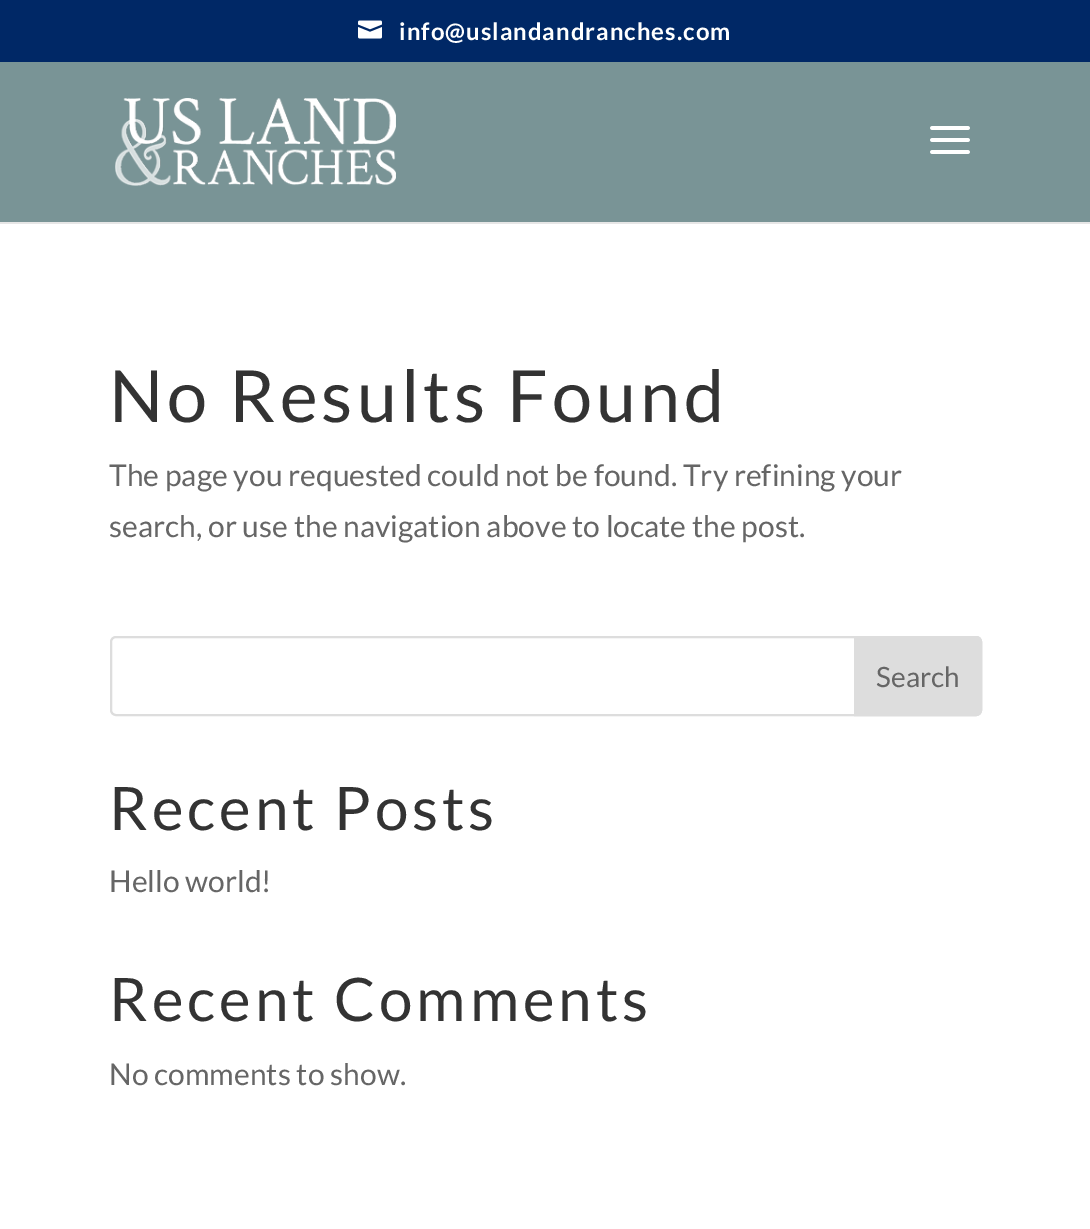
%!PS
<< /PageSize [1090 1229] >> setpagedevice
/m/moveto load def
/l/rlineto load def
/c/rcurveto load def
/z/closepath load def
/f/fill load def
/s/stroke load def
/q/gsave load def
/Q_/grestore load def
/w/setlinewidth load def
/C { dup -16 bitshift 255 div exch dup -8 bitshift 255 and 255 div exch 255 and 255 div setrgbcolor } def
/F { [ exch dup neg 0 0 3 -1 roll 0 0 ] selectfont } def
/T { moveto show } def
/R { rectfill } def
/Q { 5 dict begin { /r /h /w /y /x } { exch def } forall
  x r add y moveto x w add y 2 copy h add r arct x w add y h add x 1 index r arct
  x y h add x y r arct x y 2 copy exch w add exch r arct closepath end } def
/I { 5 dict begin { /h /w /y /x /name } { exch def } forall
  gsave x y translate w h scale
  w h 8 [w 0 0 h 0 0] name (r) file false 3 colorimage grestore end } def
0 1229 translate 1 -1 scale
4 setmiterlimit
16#FFFFFF C
0 0 1090 1229 R
16#002866 C
0 0 1090 62 R
(1.rgb) 358 20 24 19 I
/Lato-Bold 24 F
16#FFFFFF C
399 40 m 1 0 (info@uslandandranches.com) ashow
16#E6E6E6 C
0 222 1090 2 R
16#799496 C
0 62 1090 160 R
(2.rgb) 115 98 281 88 I
(3.rgb) 930 126 40 28 I
/Lato-Regular 72 F
16#333333 C
109 422 m 4 0 (No Results Found) ashow
/Lato-Regular 30 F
16#666666 C
(The page you requested could not be found. Try refining your) 109 486 T
(search, or use the navigation above to locate the post.) 109 537 T
16#DDDDDD C
2 w
111 637 870 78 5 Q s
855 637 m 121 0 l 3 0 5 2 5 5 c 0 68 l 0 3 -2 5 -5 5 c -121 0 l z q f Q_
s
/Lato-Regular 28 F
16#666666 C
(Search) 876 687 T
/Lato-Regular 60 F
16#333333 C
109 830 m 4 0 (Recent Posts) ashow
/Lato-Regular 30 F
16#666666 C
(Hello world!) 109 892 T
/Lato-Regular 60 F
16#333333 C
109 1021 m 4 0 (Recent Comments) ashow
/Lato-Regular 30 F
16#666666 C
(No comments to show.) 109 1085 T
showpage
